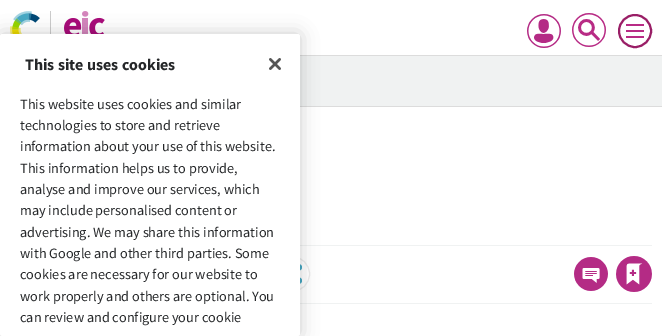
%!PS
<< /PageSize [662 336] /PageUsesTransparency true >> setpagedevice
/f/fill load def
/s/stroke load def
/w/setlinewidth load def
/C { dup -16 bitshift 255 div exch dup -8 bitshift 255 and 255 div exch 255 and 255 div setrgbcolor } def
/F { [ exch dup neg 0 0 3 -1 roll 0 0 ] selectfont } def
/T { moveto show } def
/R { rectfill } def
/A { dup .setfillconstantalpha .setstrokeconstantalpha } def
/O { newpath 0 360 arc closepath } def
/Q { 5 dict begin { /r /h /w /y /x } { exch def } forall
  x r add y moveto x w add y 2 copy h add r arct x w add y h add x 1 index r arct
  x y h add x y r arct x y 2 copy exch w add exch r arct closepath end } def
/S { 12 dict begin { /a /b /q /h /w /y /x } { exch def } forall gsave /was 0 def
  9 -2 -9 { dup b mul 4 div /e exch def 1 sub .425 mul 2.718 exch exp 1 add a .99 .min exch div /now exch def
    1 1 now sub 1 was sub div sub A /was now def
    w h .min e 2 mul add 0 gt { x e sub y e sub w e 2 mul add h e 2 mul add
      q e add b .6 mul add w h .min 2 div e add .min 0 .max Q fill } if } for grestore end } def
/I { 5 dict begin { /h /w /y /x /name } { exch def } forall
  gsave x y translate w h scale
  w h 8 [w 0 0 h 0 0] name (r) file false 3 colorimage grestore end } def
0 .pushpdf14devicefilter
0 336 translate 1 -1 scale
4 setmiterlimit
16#FFFFFF C
0 0 662 336 R
16#DCDCDC C
300 55 362 1 R
(1.rgb) 10 11 30 23 I
16#CCCCCC C
50 11 1 23 R
(2.rgb) 64 11 41 23 I
(3.rgb) 527 14 34 34 I
16#991E66 C
2 w
635 31 16 O s
(4.rgb) 626 24 18 14 I
(5.rgb) 572 13 34 34 I
16#F0F2F2 C
300 56 362 50 R
16#DCDCDC C
300 106 362 1 R
16#F0F2F2 C
300 245 352 1 R
300 303 352 1 R
16#ECECEC C
1 w
292 274 17.5 O s
(6.rgb) 300 264 2 20 I
(7.rgb) 574 257 34 34 I
(8.rgb) 616 256 36 36 I
16#000000 C
0 34 300 302 2.5 9 .2 S
16#FFFFFF C
0 34 300 302 2.5 Q f
/SourceSansPro-Bold 16 F
16#252729 C
(This site uses cookies) 25 70 T
/SourceSansPro-Regular 14.25 F
(This website uses cookies and similar) 20 109 T
(technologies to store and retrieve) 20 130 T
(information about your use of this website.) 20 151 T
(This information helps us to provide,) 20 173 T
(analyse and improve our services, which) 20 194 T
(may include personalised content or) 20 215 T
(advertising. We may share this information) 20 237 T
(with Google and other third parties. Some) 20 258 T
(cookies are necessary for our website to) 20 279 T
(work properly and others are optional. You) 20 301 T
(can review and configure your cookie) 20 322 T
(9.rgb) 269 58 12 12 I
.poppdf14devicefilter showpage
